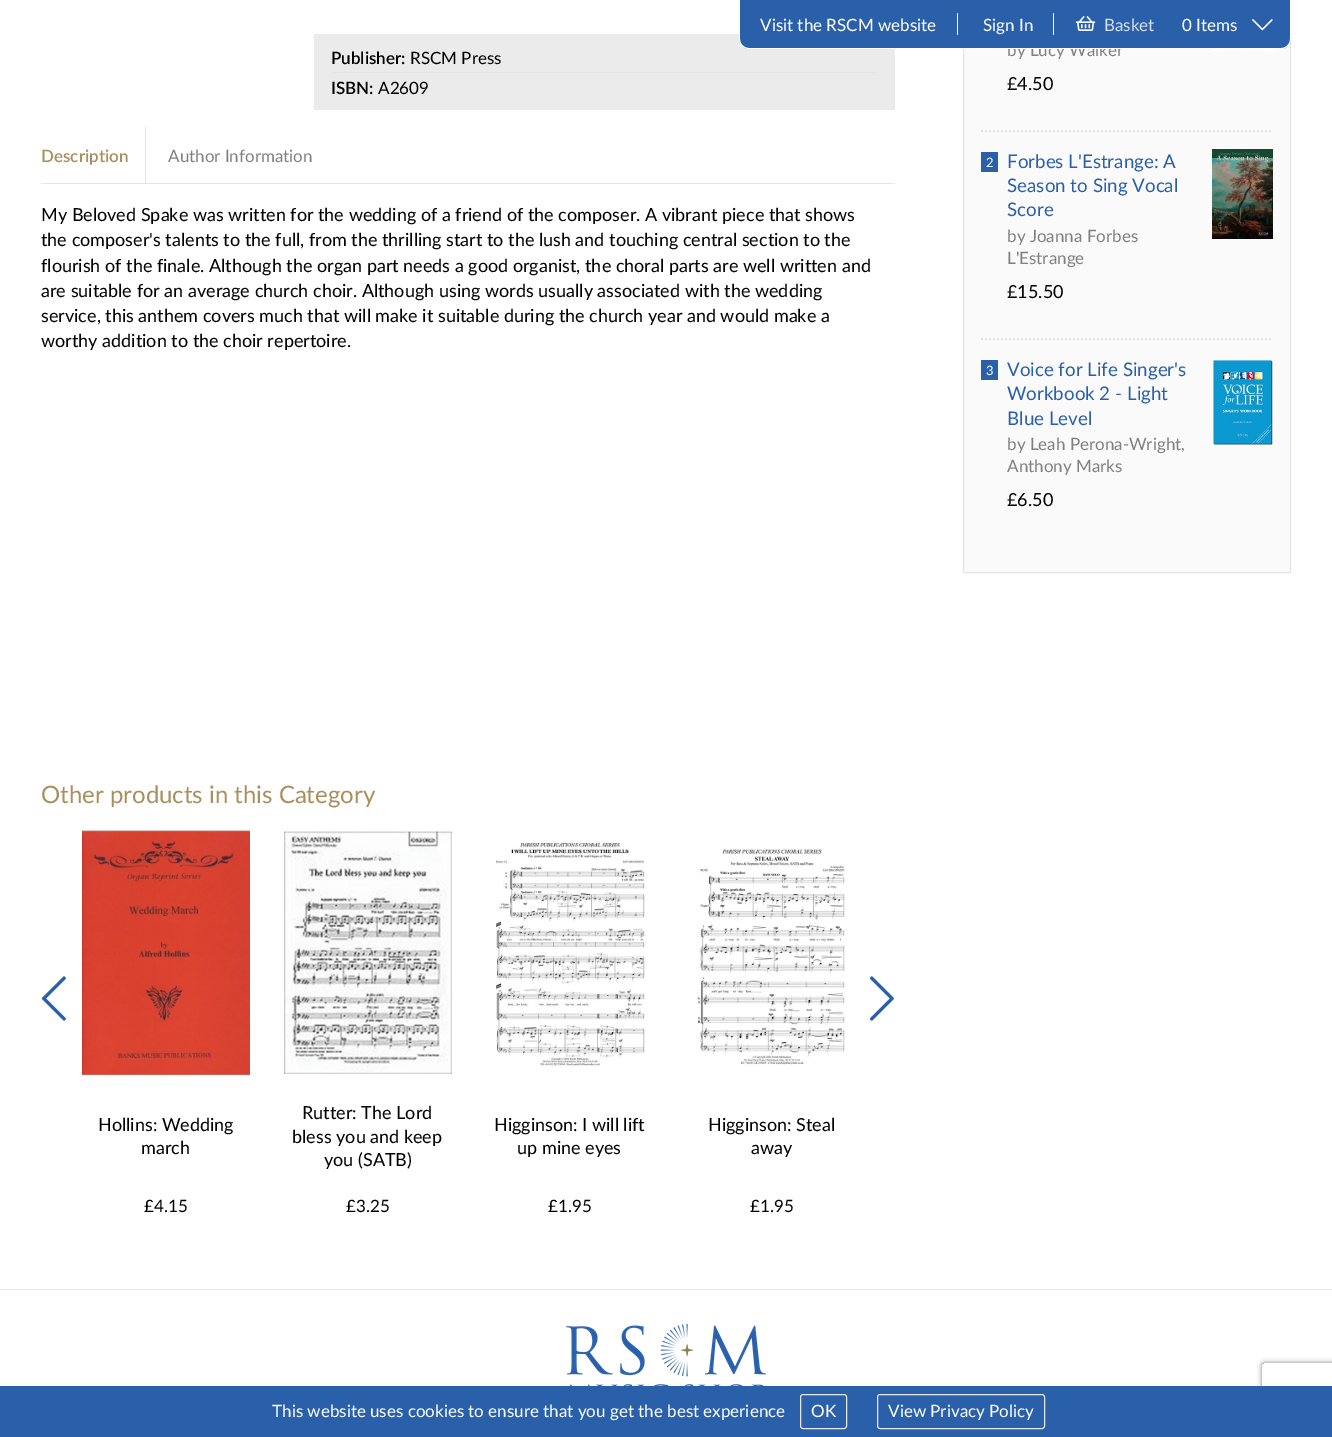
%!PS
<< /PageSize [1332 1437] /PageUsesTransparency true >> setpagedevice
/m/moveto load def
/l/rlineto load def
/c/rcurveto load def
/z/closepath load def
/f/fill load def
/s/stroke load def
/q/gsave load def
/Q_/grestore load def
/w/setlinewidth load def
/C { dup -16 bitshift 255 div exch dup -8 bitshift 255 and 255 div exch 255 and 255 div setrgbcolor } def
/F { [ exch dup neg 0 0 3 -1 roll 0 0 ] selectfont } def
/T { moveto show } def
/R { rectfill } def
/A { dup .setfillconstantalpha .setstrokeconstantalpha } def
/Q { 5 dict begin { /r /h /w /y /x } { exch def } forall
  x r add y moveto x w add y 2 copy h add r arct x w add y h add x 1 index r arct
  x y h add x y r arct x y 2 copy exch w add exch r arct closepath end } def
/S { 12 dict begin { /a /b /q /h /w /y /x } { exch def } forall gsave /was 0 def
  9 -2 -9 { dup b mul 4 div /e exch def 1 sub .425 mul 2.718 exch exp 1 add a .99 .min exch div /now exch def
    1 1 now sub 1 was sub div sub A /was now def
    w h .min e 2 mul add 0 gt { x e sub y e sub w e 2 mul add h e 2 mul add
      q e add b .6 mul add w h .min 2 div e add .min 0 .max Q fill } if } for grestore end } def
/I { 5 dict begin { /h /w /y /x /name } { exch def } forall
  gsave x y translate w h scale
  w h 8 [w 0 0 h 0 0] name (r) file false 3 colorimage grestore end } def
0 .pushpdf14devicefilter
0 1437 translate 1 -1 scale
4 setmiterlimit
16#FFFFFF C
0 0 1332 1437 R
16#EBEBEB C
314 34 581 76 R
16#FAFAFA C
964 43 326 529 R
16#E5E5E5 C
963.5 -.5 327 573 rectstroke
/Lato-Regular 17 F
16#808080 C
(by Lucy Walker) 1007 56 T
16#2A5FAA C
739 0 m 552 0 l 0 39 l 0 5.5 -4.5 10 -10 10 c -532 0 l -5.5 0 -10 -4.5 -10 -10 c z f
16#FFFFFF C
739 0 m 552 0 l 0 39 l 0 6 -4 10 -10 10 c -532 0 l -6 0 -10 -4 -10 -10 c z 740 0 m 550 0 l 0 39 l 0 5 -4 9 -9 9 c -532 0 l -5 0 -9 -4 -9 -9 c z eofill
957 13 1 22 R
(Visit the RSCM website) 760 31 T
1053 13 1 22 R
(Sign In) 983 31 T
(1.rgb) 1076 16 20 15 I
16#D4DFEE C
(Basket) 1104 31 T
16#FFFFFF C
(0 Items) 1182 31 T
(2.rgb) 1252 19 21 12 I
16#E5E5E5 C
331 72 547 1 R
/Lato-SemiBold 17 F
16#000000 C
(Publisher:) 331 64 T
/Lato-Regular 17 F
(RSCM Press) 410 64 T
/Lato-SemiBold 17 F
(ISBN:) 331 94 T
/Lato-Regular 17 F
(A2609) 378 94 T
16#E5E5E5 C
41 183 854 1 R
145 127 1 56 R
/Lato-SemiBold 17 F
16#A98E5E C
(Description) 41 162 T
/Lato-Regular 17 F
16#808080 C
(Author Information) 168 162 T
/Lato-Regular 18 F
16#000000 C
(My Beloved Spake was written for the wedding of a friend of the composer. A vibrant piece that shows) 41 221 T
(the composer's talents to the full, from the thrilling start to the lush and touching central section to the) 41 246 T
(flourish of the finale. Although the organ part needs a good organist, the choral parts are well written and) 41 272 T
(are suitable for an average church choir. Although using words usually associated with the wedding) 41 297 T
(service, this anthem covers much that will make it suitable during the church year and would make a) 41 322 T
(worthy addition to the choir repertoire.) 41 347 T
/Lato-Regular 24 F
16#A98E5E C
(Other products in this Category) 41 803 T
(3.rgb) 41 976 25 45 I
(4.rgb) 869 976 25 45 I
(5.rgb) 82 830 168 246 I
/Lato-Regular 18 F
16#000000 C
(Hollins: Wedding) 98 1131 T
(march) 141 1154 T
/Lato-Regular 17 F
(£4.15) 144 1212 T
(6.rgb) 284 831 168 243 I
/Lato-Regular 18 F
(Rutter: The Lord) 302 1119 T
(bless you and keep) 292 1143 T
(you \(SATB\)) 324 1166 T
/Lato-Regular 17 F
(£3.25) 346 1212 T
(7.rgb) 496 842 149 224 I
/Lato-Regular 18 F
(Higginson: I will lift) 494 1131 T
(up mine eyes) 517 1154 T
/Lato-Regular 17 F
(£1.95) 548 1212 T
(8.rgb) 697 848 148 217 I
/Lato-Regular 18 F
(Higginson: Steal) 708 1131 T
(away) 751 1154 T
/Lato-Regular 17 F
(£1.95) 750 1212 T
16#E5E5E5 C
2 w
[2 2] 0 setdash
981 131 m 292 0 l s
/Lato-Regular 18 F
16#000000 C
(£4.50) 1007 90 T
(9.rgb) 1212 49 61 2 I
16#E5E5E5 C
981 339 m 292 0 l s
16#2A5FAA C
981 152 17 20 R
/Lato-Regular 13 F
16#FFFFFF C
(2) 986 167 T
/Lato-Regular 18.75 F
16#2A5FAA C
(Forbes L'Estrange: A) 1007 168 T
(Season to Sing Vocal) 1007 192 T
(Score) 1007 216 T
/Lato-Regular 17 F
16#808080 C
(by Joanna Forbes) 1007 242 T
(L'Estrange) 1007 264 T
/Lato-Regular 18 F
16#000000 C
(£15.50) 1007 298 T
(10.rgb) 1212 149 61 90 I
16#2A5FAA C
981 360 17 20 R
/Lato-Regular 13 F
16#FFFFFF C
(3) 986 375 T
/Lato-Regular 18.75 F
16#2A5FAA C
(Voice for Life Singer's) 1007 376 T
(Workbook 2 - Light) 1007 400 T
(Blue Level) 1007 425 T
/Lato-Regular 17 F
16#808080 C
(by Leah Perona-Wright,) 1007 450 T
(Anthony Marks) 1007 472 T
/Lato-Regular 18 F
16#000000 C
(£6.50) 1007 506 T
(11.rgb) 1212 357 61 91 I
16#E5E5E5 C
0 1289 1332 1 R
(12.rgb) 566 1324 200 62 I
q
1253 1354 m 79 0 l 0 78 l -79 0 l z 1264 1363 m 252 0 l 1 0 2 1 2 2 c 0 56 l 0 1 -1 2 -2 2 c -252 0 l -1 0 -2 -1 -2 -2 c 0 -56 l 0 -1 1 -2 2 -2 c z eoclip newpath
16#808080 C
1262 1363 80 60 2 2.5 1 S
Q_
16#2A5FAA C
0 1386 1332 51 R
/Lato-Regular 17 F
16#FFFFFF C
(This website uses cookies to ensure that you get the best experience) 272 1417 T
16#E5E5E5 C
1 w
[] 0 setdash
800.5 1394.5 46 34 2.5 Q s
16#FFFFFF C
(OK) 811 1417 T
16#E5E5E5 C
877.5 1394.5 167 34 2.5 Q s
16#FFFFFF C
(View Privacy Policy) 888 1417 T
.poppdf14devicefilter showpage
